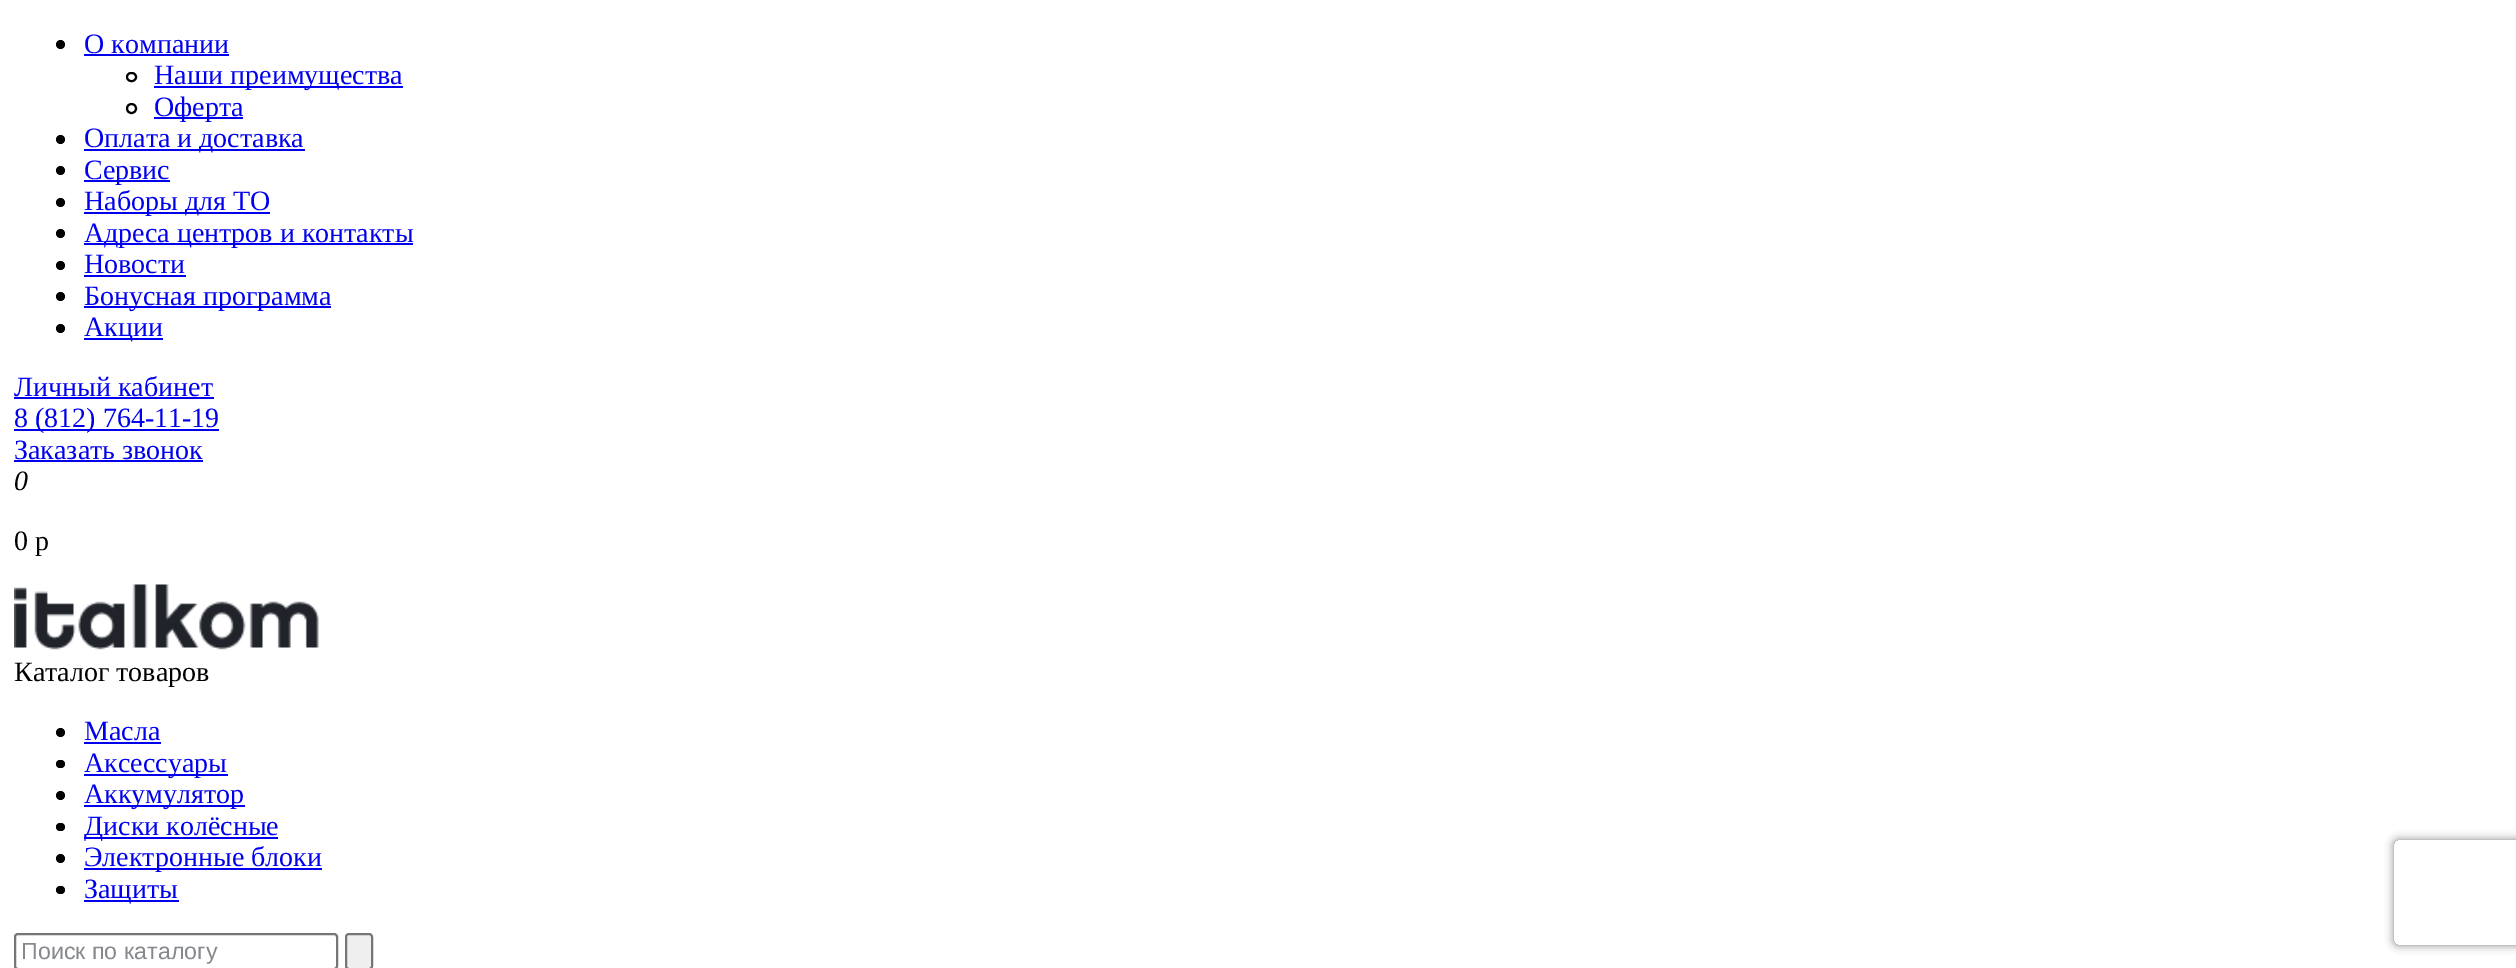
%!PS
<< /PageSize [2516 968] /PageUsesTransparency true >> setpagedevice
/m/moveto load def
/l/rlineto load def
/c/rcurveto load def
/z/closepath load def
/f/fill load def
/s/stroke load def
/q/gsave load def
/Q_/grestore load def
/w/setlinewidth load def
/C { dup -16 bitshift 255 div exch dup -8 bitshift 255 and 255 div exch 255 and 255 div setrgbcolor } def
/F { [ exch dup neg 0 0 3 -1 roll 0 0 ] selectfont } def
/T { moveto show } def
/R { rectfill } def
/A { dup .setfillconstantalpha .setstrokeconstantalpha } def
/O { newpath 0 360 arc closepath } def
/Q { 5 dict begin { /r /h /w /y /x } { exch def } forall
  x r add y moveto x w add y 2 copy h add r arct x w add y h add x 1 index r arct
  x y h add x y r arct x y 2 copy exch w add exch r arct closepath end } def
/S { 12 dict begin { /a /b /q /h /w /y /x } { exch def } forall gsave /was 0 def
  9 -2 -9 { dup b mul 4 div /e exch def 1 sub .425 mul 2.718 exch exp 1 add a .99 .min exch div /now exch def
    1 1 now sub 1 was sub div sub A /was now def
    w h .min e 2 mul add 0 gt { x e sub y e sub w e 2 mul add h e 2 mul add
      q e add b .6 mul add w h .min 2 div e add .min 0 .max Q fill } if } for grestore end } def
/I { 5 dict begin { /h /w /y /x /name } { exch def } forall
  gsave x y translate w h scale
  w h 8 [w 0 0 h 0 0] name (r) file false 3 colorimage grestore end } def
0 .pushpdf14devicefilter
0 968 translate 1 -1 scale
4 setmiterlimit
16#FFFFFF C
0 0 2516 968 R
16#000000 C
60.5 44.5 4.5 O f
/LiberationSerif-Regular 28 F
16#0000EE C
(О компании) 84 53 T
84 54 145 2 R
16#000000 C
2 w
127 73 9 8 4 Q s
16#0000EE C
154 86 249 2 R
(Наши преимущества) 154 84 T
16#000000 C
131.5 108.5 4.5 O s
16#0000EE C
154 117 89 2 R
(Оферта) 154 116 T
16#000000 C
60.5 139.5 4.5 O f
16#0000EE C
84 149 221 2 R
(Оплата и доставка) 84 147 T
16#000000 C
60.5 170.5 4.5 O f
16#0000EE C
84 180 86 2 R
(Сервис) 84 179 T
16#000000 C
60.5 202.5 4.5 O f
16#0000EE C
84 212 186 2 R
(Наборы для ТО) 84 210 T
16#000000 C
60.5 233.5 4.5 O f
16#0000EE C
84 243 329 2 R
(Адреса центров и контакты) 84 242 T
16#000000 C
60.5 265.5 4.5 O f
16#0000EE C
(Новости) 84 273 T
84 275 102 2 R
16#000000 C
60.5 296.5 4.5 O f
16#0000EE C
84 306 247 2 R
(Бонусная программа) 84 305 T
16#000000 C
60.5 328.5 4.5 O f
16#0000EE C
84 338 79 2 R
(Акции) 84 336 T
(Личный кабинет) 14 396 T
14 397 200 2 R
14 429 205 2 R
(8 \(812\) 764-11-19) 14 427 T
(Заказать звонок) 14 459 T
14 460 189 2 R
/LiberationSerif-Italic 28 F
16#000000 C
(0) 14 490 T
/LiberationSerif-Regular 28 F
(0 р) 14 550 T
(1.rgb) 14 584 305 66 I
(Каталог товаров) 14 681 T
60.5 732.5 4.5 O f
16#0000EE C
(Масла) 84 740 T
84 742 77 2 R
16#000000 C
56 760 9 8 4 Q f
16#0000EE C
84 774 144 2 R
(Аксессуары) 84 772 T
16#000000 C
60.5 795.5 4.5 O f
16#0000EE C
84 805 161 2 R
(Аккумулятор) 84 803 T
16#000000 C
56 823 9 8 4 Q f
16#0000EE C
84 837 194 2 R
(Диски колёсные) 84 835 T
16#000000 C
60.5 858.5 4.5 O f
16#0000EE C
84 868 238 2 R
(Электронные блоки) 84 866 T
16#000000 C
56 886 9 8 4 Q f
16#0000EE C
84 900 95 2 R
(Защиты) 84 898 T
16#767676 C
15 934 322 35 3 Q s
/LiberationSans-Regular 23.25 F
16#85888C C
(Поиск по каталогу) 21 959 T
16#EFEFEF C
346 934 26 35 3 Q q f Q_
16#767676 C
s
q
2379 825 m 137 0 l 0 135 l -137 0 l z 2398 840 m 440 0 l 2 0 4 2 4 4 c 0 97 l 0 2 -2 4 -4 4 c -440 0 l -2 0 -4 -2 -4 -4 c 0 -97 l 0 -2 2 -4 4 -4 c z eoclip newpath
16#808080 C
2394 840 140 105 4 4.5 1 S
Q_
.poppdf14devicefilter showpage
